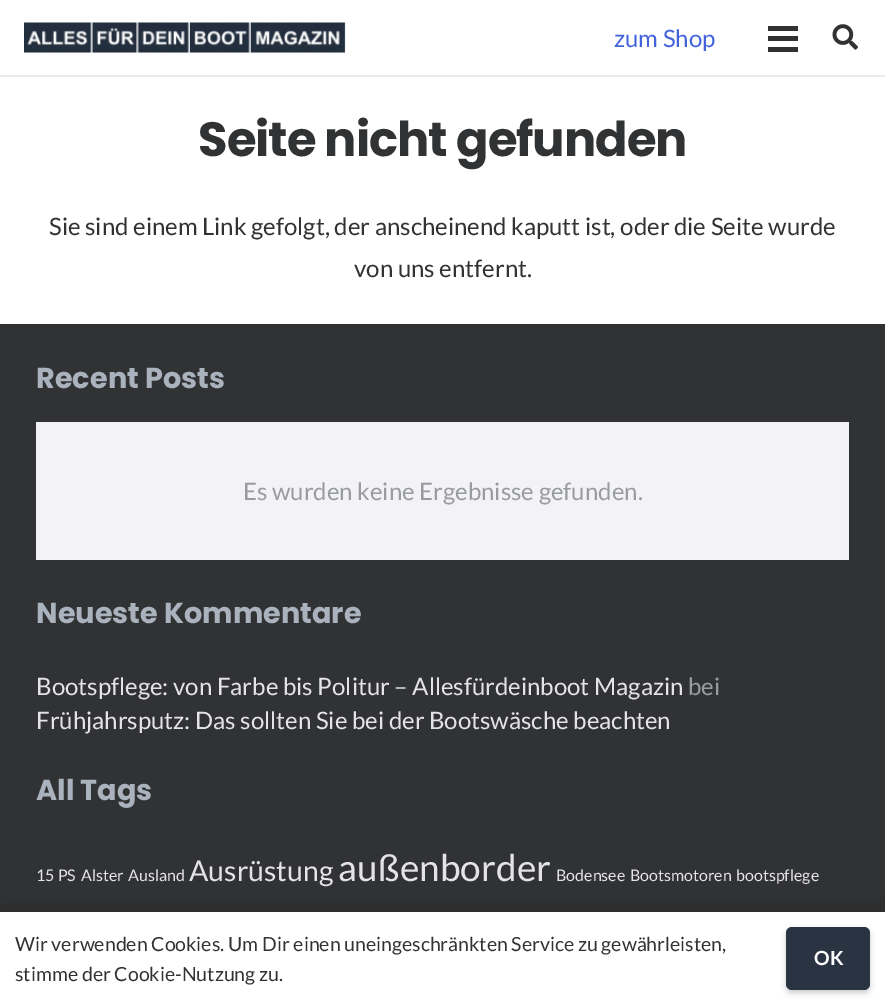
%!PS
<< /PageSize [885 1005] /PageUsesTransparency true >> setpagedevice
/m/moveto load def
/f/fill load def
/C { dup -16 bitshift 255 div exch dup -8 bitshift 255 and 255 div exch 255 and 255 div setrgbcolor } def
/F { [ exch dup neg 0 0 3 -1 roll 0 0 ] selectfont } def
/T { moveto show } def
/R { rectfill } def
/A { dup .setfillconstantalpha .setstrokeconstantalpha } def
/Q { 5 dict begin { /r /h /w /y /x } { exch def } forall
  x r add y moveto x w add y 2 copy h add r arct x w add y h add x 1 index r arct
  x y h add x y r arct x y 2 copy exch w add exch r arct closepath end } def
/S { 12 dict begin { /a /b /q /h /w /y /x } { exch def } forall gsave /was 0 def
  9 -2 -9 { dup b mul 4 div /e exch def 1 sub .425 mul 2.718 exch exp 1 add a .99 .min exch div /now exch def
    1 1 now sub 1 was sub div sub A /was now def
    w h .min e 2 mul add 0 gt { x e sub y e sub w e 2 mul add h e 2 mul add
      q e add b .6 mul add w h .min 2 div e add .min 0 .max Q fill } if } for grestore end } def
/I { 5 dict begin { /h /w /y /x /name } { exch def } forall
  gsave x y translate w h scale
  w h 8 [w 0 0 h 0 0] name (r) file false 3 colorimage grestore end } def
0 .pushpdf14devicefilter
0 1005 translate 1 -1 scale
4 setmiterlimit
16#FFFFFF C
0 0 885 1005 R
16#EBEBEB C
0 75 885 2 R
(1.rgb) 24 22 322 31 I
/Lato-Regular 24 F
16#4263DB C
(zum Shop) 614 47 T
16#313233 C
768 36 30 5 R
768 26 30 5 R
768 47 30 5 R
(2.rgb) 832 24 26 26 I
/Poppins-Bold 48 F
198 156 m -1 0 (Seite nicht gefunden) ashow
/Lato-Regular 24 F
(Sie sind einem Link gefolgt, der anscheinend kaputt ist, oder die Seite wurde) 49 235 T
(von uns entfernt.) 354 277 T
0 324 885 588 R
/Poppins-Bold 28.75 F
16#AAB2BD C
(Recent Posts) 36 388 T
16#F3F2F5 C
36 422 813 138 R
/Lato-Regular 24 F
16#999C9E C
(Es wurden keine Ergebnisse gefunden.) 243 500 T
/Poppins-Bold 28.75 F
16#AAB2BD C
(Neueste Kommentare) 36 623 T
/Lato-Regular 24 F
16#E4E3E8 C
(Bootspflege: von Farbe bis Politur – Allesfürdeinboot Magazin) 36 695 T
16#999C9E C
(bei) 688 695 T
16#E4E3E8 C
(Frühjahrsputz: Das sollten Sie bei der Bootswäsche beachten) 36 729 T
/Poppins-Bold 28.75 F
16#AAB2BD C
(All Tags) 36 800 T
/Lato-Regular 16 F
16#E4E3E8 C
(15 PS) 36 881 T
(Alster) 81 881 T
(Ausland) 128 881 T
/Lato-Regular 28.5 F
(Ausrüstung) 189 881 T
/Lato-Regular 37 F
(außenborder) 338 881 T
/Lato-Regular 16 F
(Bodensee) 556 881 T
(Bootsmotoren) 630 881 T
(bootspflege) 736 881 T
16#000000 C
0 905 885 93 0 11 .15 S
16#FFFFFF C
0 912 885 93 R
/Lato-Regular 19.5 F
16#313233 C
(Wir verwenden Cookies. Um Dir einen uneingeschränkten Service zu gewährleisten,) 15 951 T
(stimme der Cookie-Nutzung zu.) 15 981 T
16#000000 C
786 930 84 63 6 3 .2 S
16#293341 C
786 927 84 63 6 Q f
/Lato-Bold 19.5 F
16#FFFFFF C
(OK) 814 965 T
.poppdf14devicefilter showpage
